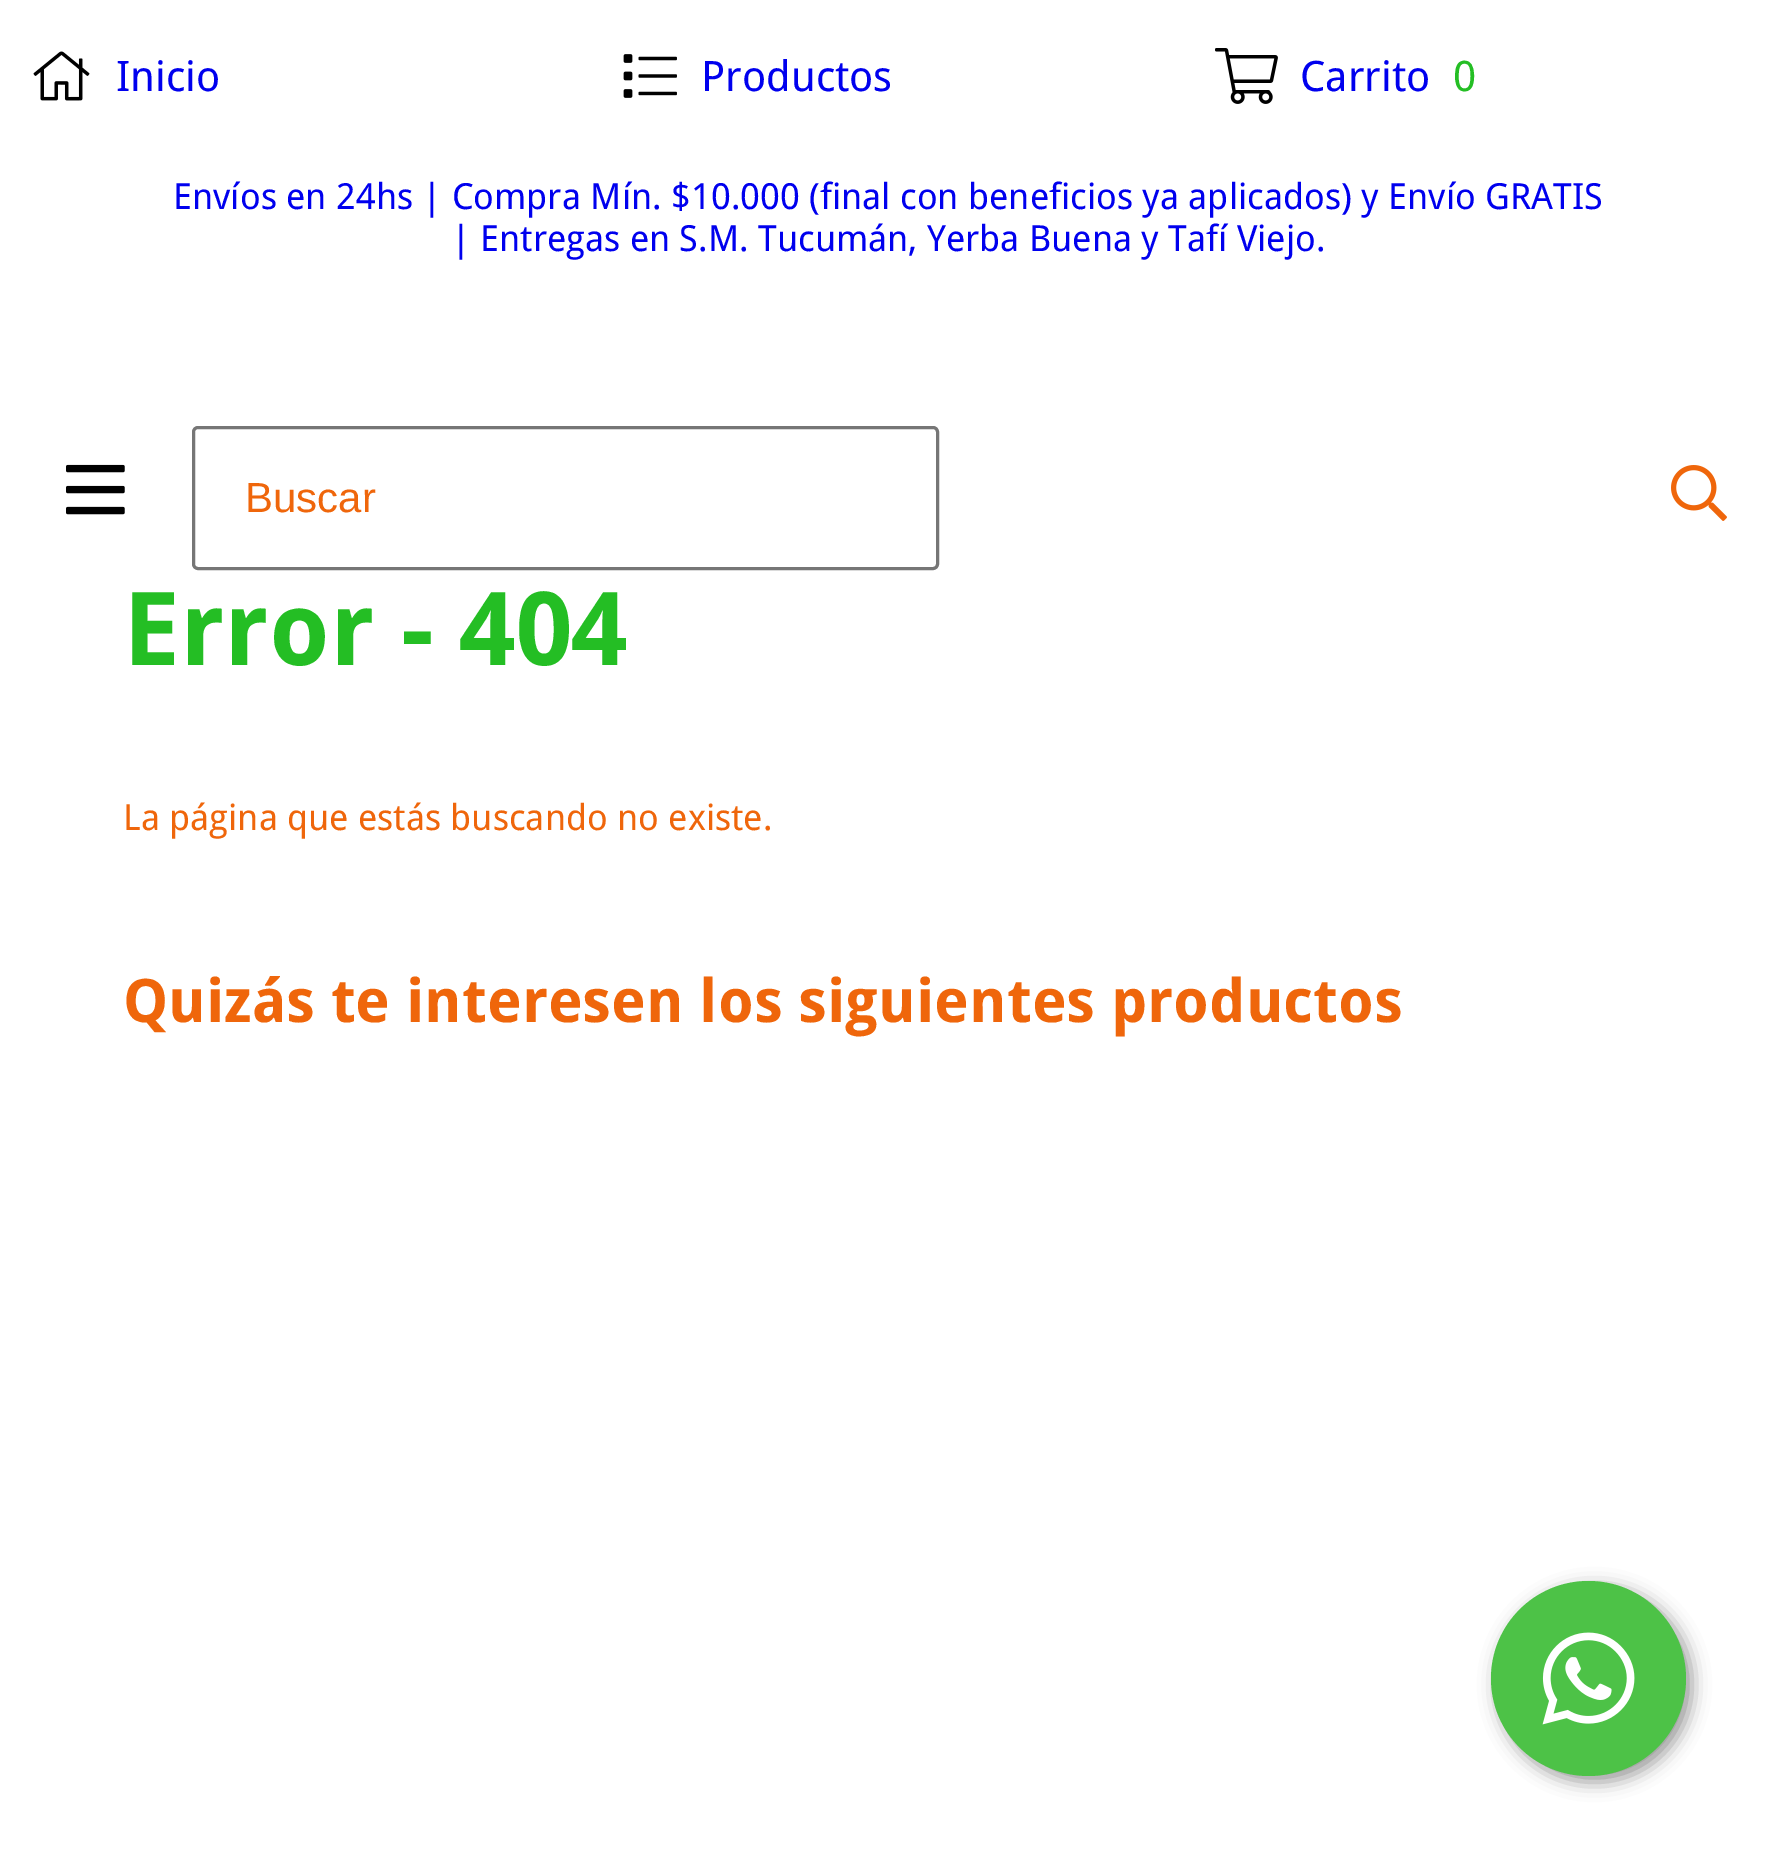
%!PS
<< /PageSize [1774 1866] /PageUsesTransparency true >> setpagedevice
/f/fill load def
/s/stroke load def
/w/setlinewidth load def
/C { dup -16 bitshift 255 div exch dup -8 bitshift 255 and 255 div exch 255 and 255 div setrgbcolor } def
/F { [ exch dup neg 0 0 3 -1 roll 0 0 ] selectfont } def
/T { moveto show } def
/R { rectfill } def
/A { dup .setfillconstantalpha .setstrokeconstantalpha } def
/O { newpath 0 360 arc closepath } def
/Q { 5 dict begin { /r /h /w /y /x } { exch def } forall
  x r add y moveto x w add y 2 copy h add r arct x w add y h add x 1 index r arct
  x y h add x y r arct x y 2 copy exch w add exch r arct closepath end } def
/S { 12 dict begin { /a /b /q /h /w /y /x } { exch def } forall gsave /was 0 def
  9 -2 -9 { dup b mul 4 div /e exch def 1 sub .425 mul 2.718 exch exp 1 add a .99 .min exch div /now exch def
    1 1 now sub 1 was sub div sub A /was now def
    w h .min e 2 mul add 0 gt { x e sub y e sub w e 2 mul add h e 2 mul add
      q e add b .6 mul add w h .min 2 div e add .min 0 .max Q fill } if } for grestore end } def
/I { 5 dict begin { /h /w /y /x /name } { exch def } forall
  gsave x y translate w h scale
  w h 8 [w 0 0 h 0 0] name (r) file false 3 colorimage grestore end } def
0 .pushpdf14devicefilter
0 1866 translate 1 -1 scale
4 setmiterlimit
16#FFFFFF C
0 0 1774 1866 R
(1.rgb) 33 51 57 50 I
/DroidSans-Regular 42 F
16#0000EE C
(Inicio) 116 91 T
(2.rgb) 623 54 54 44 I
(Productos) 701 91 T
(3.rgb) 1215 48 63 56 I
(Carrito) 1300 91 T
16#24BE24 C
(0) 1453 91 T
/DroidSans-Regular 36 F
16#0000EE C
(Envíos en 24hs | Compra Mín. $10.000 \(final con beneficios ya aplicados\) y Envío GRATIS) 173 209 T
(| Entregas en S.M. Tucumán, Yerba Buena y Tafí Viejo.) 451 251 T
(4.rgb) 66 464 59 51 I
16#767676 C
3 w
193.5 427.5 744 141 4.5 Q s
/LiberationSans-Regular 42 F
16#EF660B C
(Buscar) 245 512 T
(5.rgb) 1671 465 56 56 I
/DroidSans-Bold 102 F
16#24BE24 C
(Error - 404) 123 665 T
/DroidSans-Regular 36 F
16#EF660B C
(La página que estás buscando no existe.) 123 830 T
/DroidSans-Bold 60 F
(Quizás te interesen los siguientes productos) 123 1022 T
16#000000 C
1497 1587 195 195 97.5 9 .4 S
16#4DC247 C
1588.5 1678.5 97.5 O f
(6.rgb) 1542 1632 93 93 I
.poppdf14devicefilter showpage
